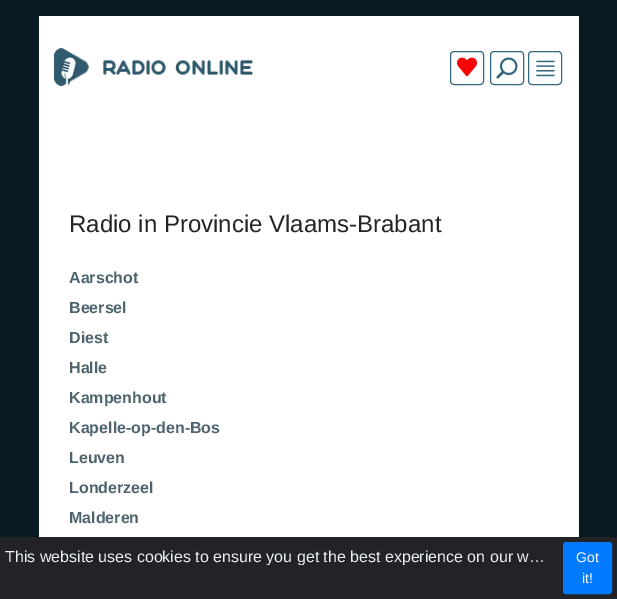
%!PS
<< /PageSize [617 599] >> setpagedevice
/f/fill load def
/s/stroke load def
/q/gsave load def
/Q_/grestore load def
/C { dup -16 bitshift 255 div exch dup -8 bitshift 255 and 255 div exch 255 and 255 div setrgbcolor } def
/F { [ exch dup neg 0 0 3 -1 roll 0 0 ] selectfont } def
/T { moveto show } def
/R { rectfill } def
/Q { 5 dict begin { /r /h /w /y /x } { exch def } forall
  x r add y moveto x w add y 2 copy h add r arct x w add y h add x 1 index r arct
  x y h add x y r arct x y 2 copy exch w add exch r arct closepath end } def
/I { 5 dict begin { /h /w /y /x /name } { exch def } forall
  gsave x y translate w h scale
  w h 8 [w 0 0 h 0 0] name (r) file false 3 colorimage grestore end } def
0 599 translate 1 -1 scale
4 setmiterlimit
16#091A22 C
0 0 617 599 R
16#FFFFFF C
39 16 540 521 R
(1.rgb) 54 48 199 38 I
16#35687F C
450.5 51.5 33 33 3.5 Q s
(2.rgb) 457 57 20 20 I
490.5 51.5 33 33 3.5 Q s
(3.rgb) 496 57 22 22 I
528.5 51.5 33 33 3.5 Q s
(4.rgb) 536 60 19 17 I
/LiberationSans-Regular 24 F
16#212529 C
(Radio in Provincie Vlaams-Brabant) 69 232 T
/LiberationSans-Bold 16 F
16#4D646E C
(Aarschot) 69 283 T
(Beersel) 69 313 T
(Diest) 69 343 T
(Halle) 69 373 T
(Kampenhout) 69 403 T
(Kapelle-op-den-Bos) 69 433 T
(Leuven) 69 463 T
(Londerzeel) 69 493 T
(Malderen) 69 523 T
16#212327 C
0 537 617 62 R
q
0 549 553 16 rectclip
/LiberationSans-Regular 16 F
16#ECF0F1 C
(This website uses cookies to ensure you get the best experience on our w…) 5 562 T
Q_
16#007BFF C
563.5 542.5 48 51 2.5 Q q f Q_
s
/LiberationSans-Regular 14 F
16#FFFFFF C
(Got) 576 562 T
(it!) 582 583 T
showpage
